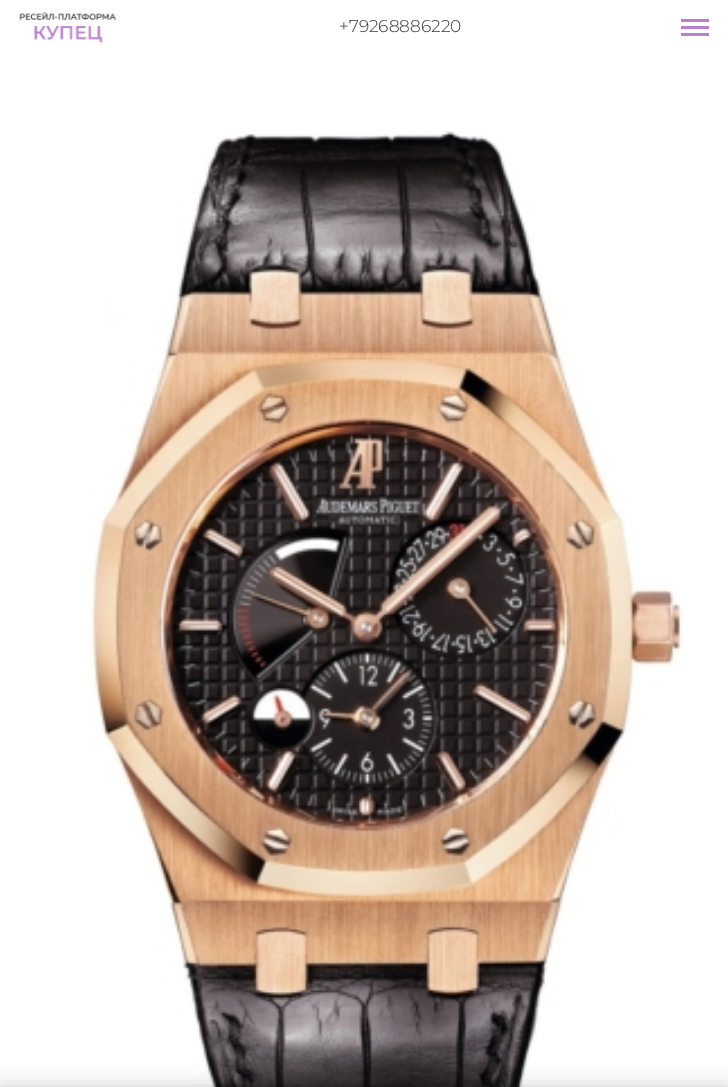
%!PS
<< /PageSize [728 1087] /PageUsesTransparency true >> setpagedevice
/C { dup -16 bitshift 255 div exch dup -8 bitshift 255 and 255 div exch 255 and 255 div setrgbcolor } def
/F { [ exch dup neg 0 0 3 -1 roll 0 0 ] selectfont } def
/T { moveto show } def
/R { rectfill } def
/A { dup .setfillconstantalpha .setstrokeconstantalpha } def
/Q { 5 dict begin { /r /h /w /y /x } { exch def } forall
  x r add y moveto x w add y 2 copy h add r arct x w add y h add x 1 index r arct
  x y h add x y r arct x y 2 copy exch w add exch r arct closepath end } def
/S { 12 dict begin { /a /b /q /h /w /y /x } { exch def } forall gsave /was 0 def
  9 -2 -9 { dup b mul 4 div /e exch def 1 sub .425 mul 2.718 exch exp 1 add a .99 .min exch div /now exch def
    1 1 now sub 1 was sub div sub A /was now def
    w h .min e 2 mul add 0 gt { x e sub y e sub w e 2 mul add h e 2 mul add
      q e add b .6 mul add w h .min 2 div e add .min 0 .max Q fill } if } for grestore end } def
/I { 5 dict begin { /h /w /y /x /name } { exch def } forall
  gsave x y translate w h scale
  w h 8 [w 0 0 h 0 0] name (r) file false 3 colorimage grestore end } def
0 .pushpdf14devicefilter
0 1087 translate 1 -1 scale
4 setmiterlimit
16#FFFFFF C
0 0 728 1087 R
(1.rgb) 19 12 97 31 I
/Montserrat-Light 17 F
16#333333 C
(+79268886220) 339 32 T
16#B980D1 C
681 26 28 3 R
681 19 28 3 R
681 33 28 3 R
(2.rgb) 89 131 594 956 I
16#000000 C
0 1087 728 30 0 10 .2 S
.poppdf14devicefilter showpage
